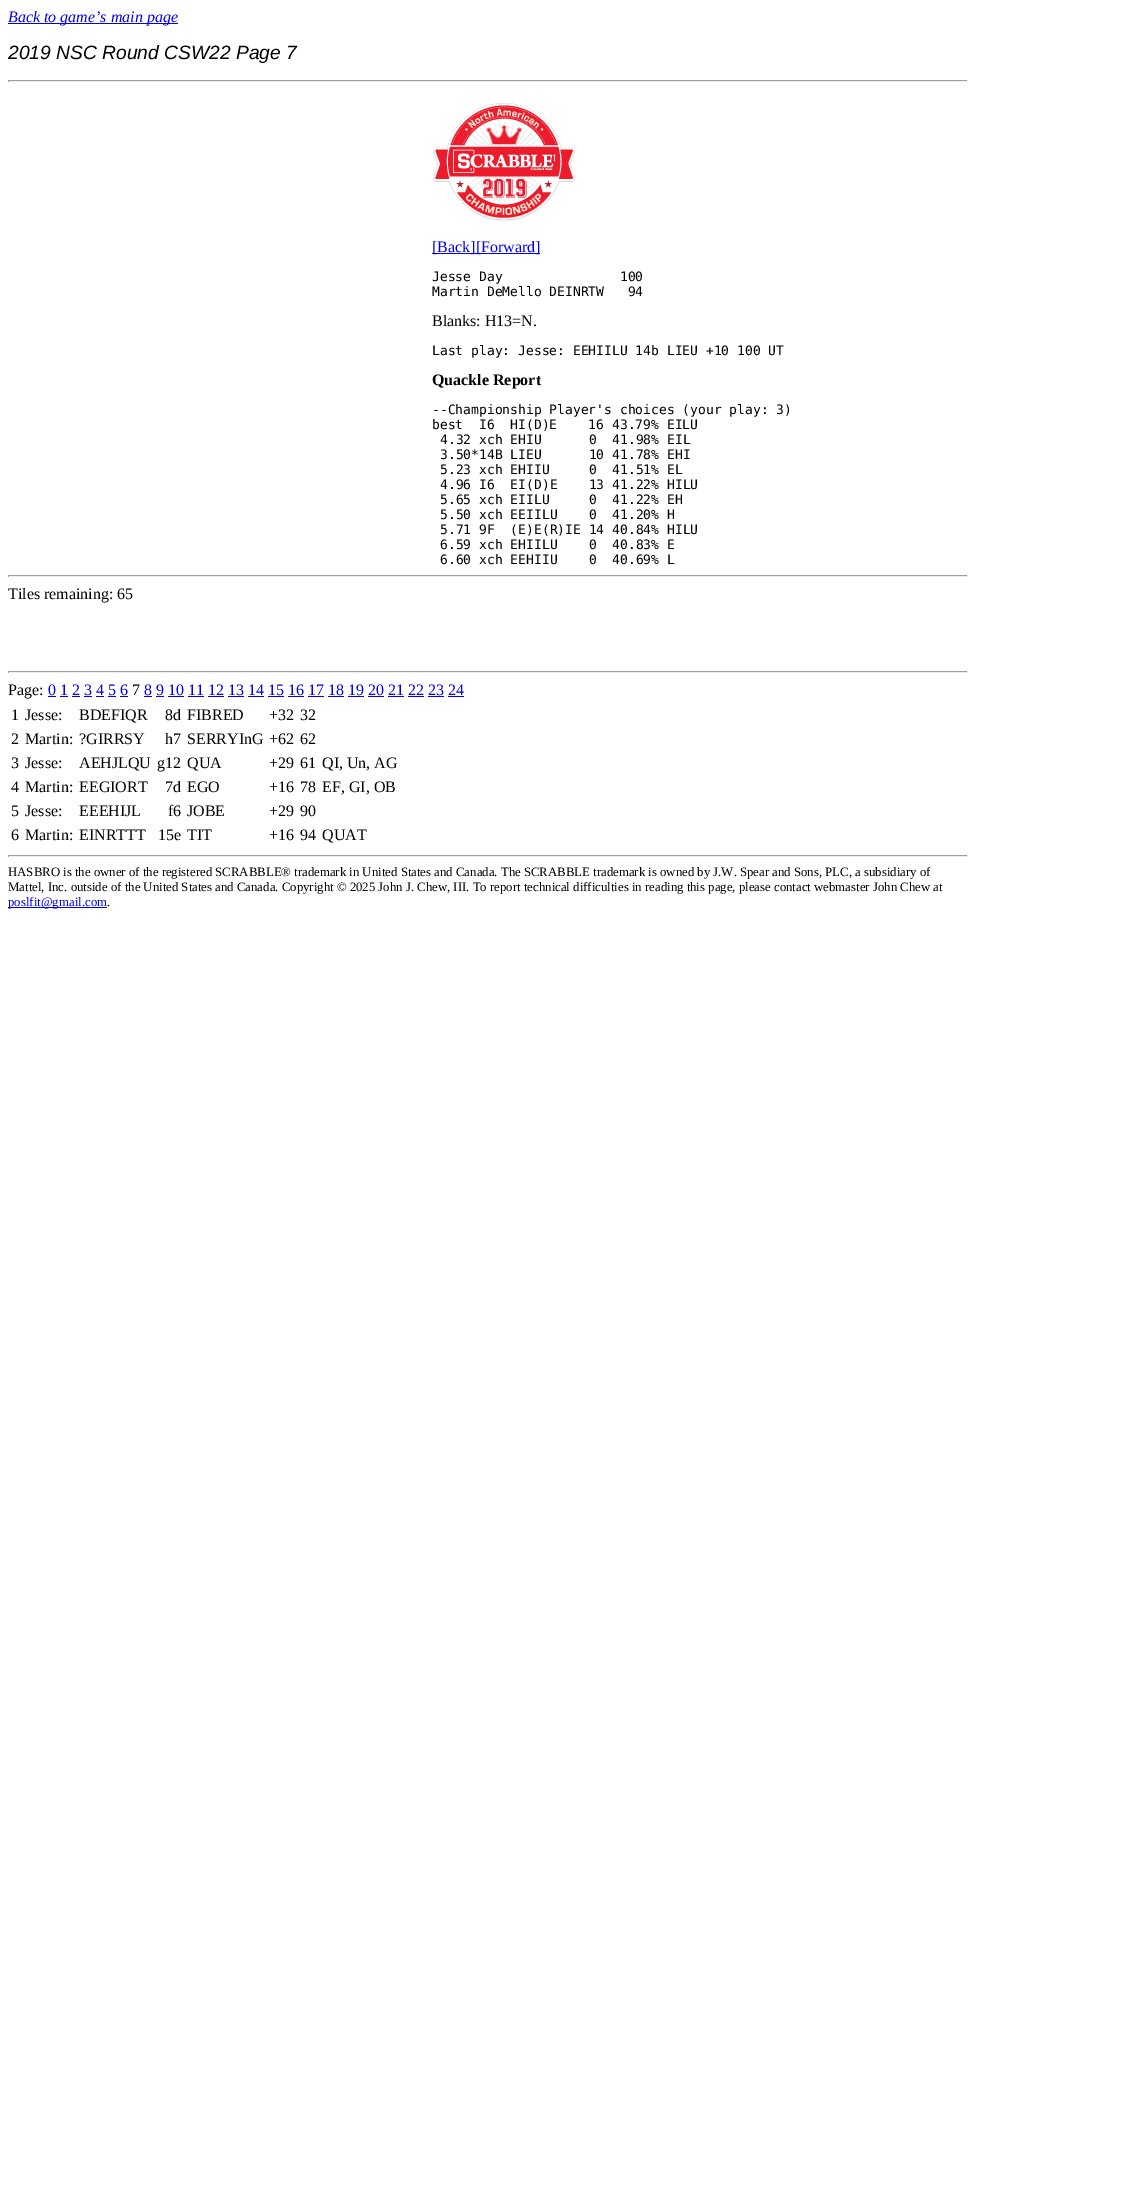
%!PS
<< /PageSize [1133 2189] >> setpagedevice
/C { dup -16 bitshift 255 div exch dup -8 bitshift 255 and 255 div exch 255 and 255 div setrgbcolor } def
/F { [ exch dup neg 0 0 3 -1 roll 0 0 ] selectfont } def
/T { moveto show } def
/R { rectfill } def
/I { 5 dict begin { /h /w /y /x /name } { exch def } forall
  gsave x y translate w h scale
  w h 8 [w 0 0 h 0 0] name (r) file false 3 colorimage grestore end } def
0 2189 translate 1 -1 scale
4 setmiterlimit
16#FFFFFF C
0 0 1133 2189 R
16#0000EE C
8 23 170 1 R
/LiberationSerif-Italic 16 F
(Back to game’s main page) 8 22 T
/LiberationSans-Italic 19.25 F
16#000000 C
(2019 NSC Round CSW22 Page 7) 8 59 T
16#9F9F9F C
8 80 960 1 R
16#EEEEEE C
967 80 1 2 R
8 81 960 1 R
16#9F9F9F C
8 80 1 2 R
(1.rgb) 433 103 143 118 I
16#0000EE C
432 253 108 1 R
/LiberationSerif-Regular 16 F
([Back][Forward]) 432 252 T
/DejaVuSansMono-Regular 13 F
16#000000 C
(Jesse Day               100) 432 281 T
(Martin DeMello DEINRTW   94) 432 296 T
/LiberationSerif-Regular 16 F
(Blanks: H13=N.) 432 326 T
/DejaVuSansMono-Regular 13 F
(Last play: Jesse: EEHIILU 14b LIEU +10 100 UT) 432 355 T
/LiberationSerif-Bold 16 F
(Quackle Report) 432 385 T
/DejaVuSansMono-Regular 13 F
(--Championship Player's choices \(your play: 3\)) 432 414 T
(best  I6  HI\(D\)E    16 43.79% EILU) 432 429 T
(4.32 xch EHIU      0  41.98% EIL) 440 444 T
(3.50*14B LIEU      10 41.78% EHI) 440 459 T
(5.23 xch EHIIU     0  41.51% EL) 440 474 T
(4.96 I6  EI\(D\)E    13 41.22% HILU) 440 489 T
(5.65 xch EIILU     0  41.22% EH) 440 504 T
(5.50 xch EEIILU    0  41.20% H) 440 519 T
(5.71 9F  \(E\)E\(R\)IE 14 40.84% HILU) 440 534 T
(6.59 xch EHIILU    0  40.83% E) 440 549 T
(6.60 xch EEHIIU    0  40.69% L) 440 564 T
16#9F9F9F C
8 575 960 1 R
16#EEEEEE C
967 575 1 2 R
8 576 960 1 R
16#9F9F9F C
8 575 1 2 R
/LiberationSerif-Regular 16 F
16#000000 C
(Tiles remaining: 65) 8 599 T
16#9F9F9F C
8 671 960 1 R
16#EEEEEE C
967 671 1 2 R
8 672 960 1 R
16#9F9F9F C
8 671 1 2 R
16#000000 C
(Page:) 8 695 T
16#0000EE C
(0 1 2 3 4 5 6) 48 695 T
48 696 8 1 R
16#000000 C
(7) 132 695 T
16#0000EE C
(8 9 10 11 12 13 14 15 16 17 18 19 20 21 22 23 24) 144 695 T
144 696 8 1 R
60 696 8 1 R
72 696 8 1 R
84 696 8 1 R
96 696 8 1 R
108 696 8 1 R
120 696 8 1 R
156 696 8 1 R
168 696 16 1 R
188 696 16 1 R
208 696 16 1 R
228 696 16 1 R
248 696 16 1 R
268 696 16 1 R
288 696 16 1 R
308 696 16 1 R
328 696 16 1 R
348 696 16 1 R
368 696 16 1 R
388 696 16 1 R
408 696 16 1 R
428 696 16 1 R
448 696 16 1 R
16#000000 C
(1) 11 720 T
(Jesse:) 25 720 T
(BDEFIQR) 79 720 T
(8d) 165 720 T
(FIBRED) 187 720 T
(+32) 269 720 T
(32) 300 720 T
(2) 11 744 T
(Martin:) 25 744 T
(?GIRRSY) 79 744 T
(h7) 165 744 T
(SERRYInG) 187 744 T
(+62) 269 744 T
(62) 300 744 T
(3) 11 768 T
(Jesse:) 25 768 T
(AEHJLQU) 79 768 T
(g12) 157 768 T
(QUA) 187 768 T
(+29) 269 768 T
(61) 300 768 T
(QI, Un, AG) 322 768 T
(4) 11 792 T
(Martin:) 25 792 T
(EEGIORT) 79 792 T
(7d) 165 792 T
(EGO) 187 792 T
(+16) 269 792 T
(78) 300 792 T
(EF, GI, OB) 322 792 T
(5) 11 816 T
(Jesse:) 25 816 T
(EEEHIJL) 79 816 T
(f6) 168 816 T
(JOBE) 187 816 T
(+29) 269 816 T
(90) 300 816 T
(6) 11 840 T
(Martin:) 25 840 T
(EINRTTT) 79 840 T
(15e) 158 840 T
(TIT) 187 840 T
(+16) 269 840 T
(94) 300 840 T
(QUAT) 322 840 T
16#9F9F9F C
8 855 960 1 R
16#EEEEEE C
967 855 1 2 R
8 856 960 1 R
16#9F9F9F C
8 855 1 2 R
/LiberationSerif-Regular 12.8 F
16#000000 C
(HASBRO is the owner of the registered SCRABBLE® trademark in United States and Canada. The SCRABBLE trademark is owned by J.W. Spear and Sons, PLC, a subsidiary of) 8 876 T
(Mattel, Inc. outside of the United States and Canada. Copyright © 2025 John J. Chew, III. To report technical difficulties in reading this page, please contact webmaster John Chew at) 8 891 T
16#0000EE C
8 907 99 1 R
(poslfit@gmail.com) 8 906 T
16#000000 C
(.) 107 906 T
showpage
